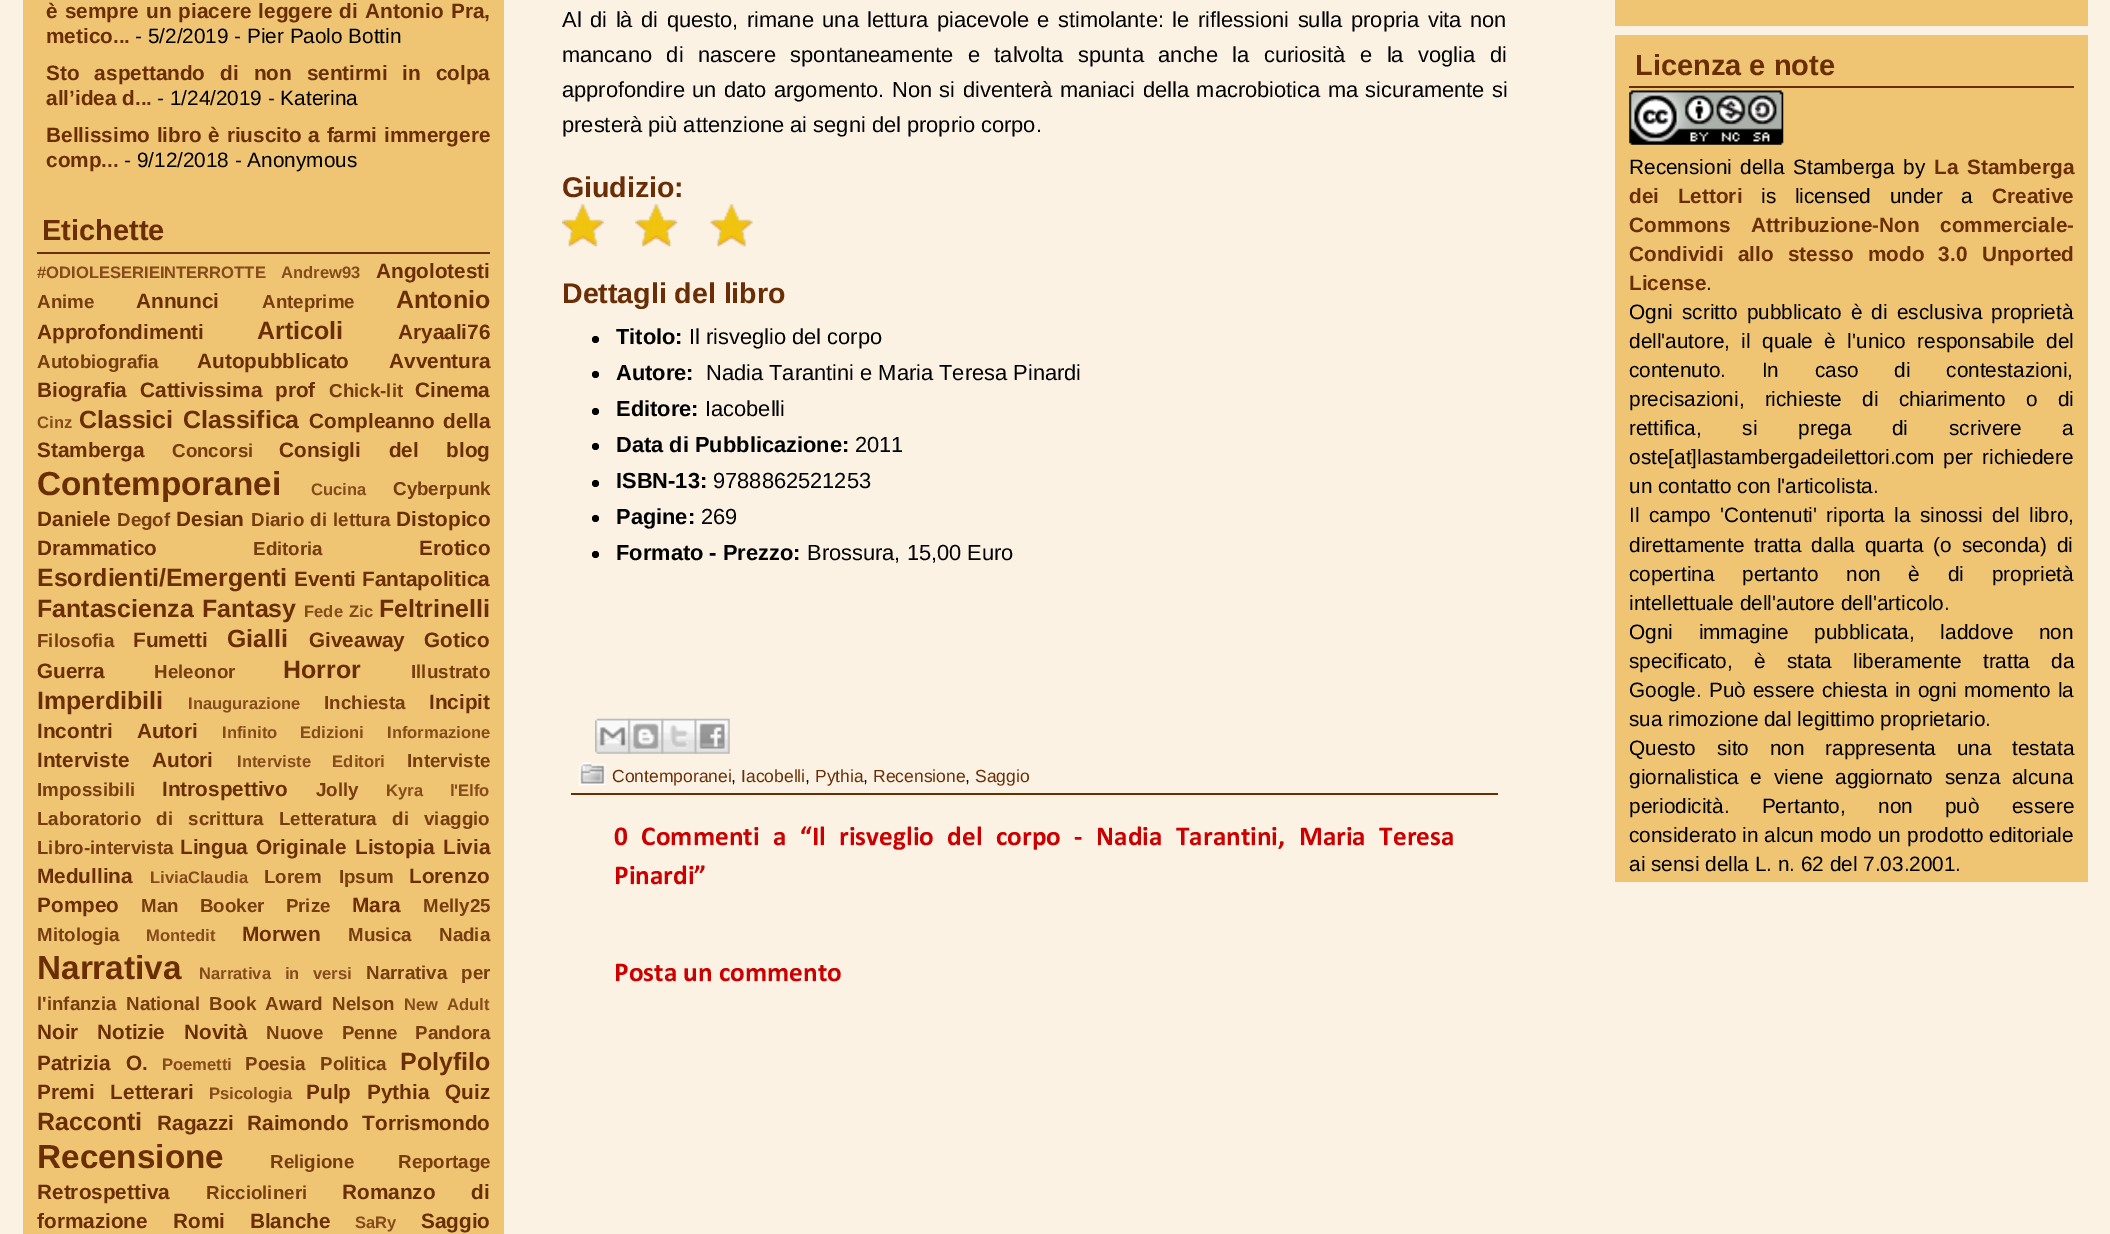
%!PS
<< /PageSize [2110 1234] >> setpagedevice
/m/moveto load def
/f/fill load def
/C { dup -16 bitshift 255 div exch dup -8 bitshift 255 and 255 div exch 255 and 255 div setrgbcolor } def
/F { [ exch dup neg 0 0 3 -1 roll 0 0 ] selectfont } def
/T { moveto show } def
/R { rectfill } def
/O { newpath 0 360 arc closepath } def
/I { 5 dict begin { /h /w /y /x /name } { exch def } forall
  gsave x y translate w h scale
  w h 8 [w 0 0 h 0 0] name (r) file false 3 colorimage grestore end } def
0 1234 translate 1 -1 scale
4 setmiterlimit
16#FBF2E4 C
0 0 2110 1234 R
16#EFC574 C
23 0 481 1234 R
/LiberationSans-Bold 20.75 F
16#6A2D04 C
46 18 m 1.5 0 32 (è sempre un piacere leggere di Antonio Pra,) widthshow
(metico...) 46 43 T
/LiberationSans-Regular 20.75 F
16#000000 C
(- 5/2/2019 - Pier Paolo Bottin) 135 43 T
/LiberationSans-Bold 20.75 F
16#6A2D04 C
46 80 m 9.25 0 32 (Sto aspettando di non sentirmi in colpa) widthshow
(all’idea d...) 46 105 T
/LiberationSans-Regular 20.75 F
16#000000 C
(- 1/24/2019 - Katerina) 157 105 T
/LiberationSans-Bold 20.75 F
16#6A2D04 C
46 142 m 1 0 32 (Bellissimo libro è riuscito a farmi immergere) widthshow
(comp...) 46 167 T
/LiberationSans-Regular 20.75 F
16#000000 C
(- 9/12/2018 - Anonymous) 124 167 T
16#6A2D04 C
37 252 453 2 R
/LiberationSans-Bold 29 F
(Etichette) 42 240 T
/LiberationSans-Bold 16.6 F
16#854B1A C
(#ODIOLESERIEINTERROTTE) 37 278 T
(Andrew93) 281 278 T
/LiberationSans-Bold 20.75 F
16#6A2D04 C
(Angolotesti) 376 278 T
/LiberationSans-Bold 18.75 F
16#773C0F C
(Anime) 37 308 T
/LiberationSans-Bold 20.75 F
16#6A2D04 C
(Annunci) 136 308 T
/LiberationSans-Bold 18.75 F
16#773C0F C
(Anteprime) 262 308 T
/LiberationSans-Bold 24.9 F
16#6A2D04 C
(Antonio) 396 308 T
/LiberationSans-Bold 20.75 F
(Approfondimenti) 37 339 T
/LiberationSans-Bold 24.9 F
(Articoli) 257 339 T
/LiberationSans-Bold 20.75 F
(Aryaali76) 398 339 T
/LiberationSans-Bold 18.75 F
16#773C0F C
(Autobiografia) 37 368 T
/LiberationSans-Bold 20.75 F
16#6A2D04 C
(Autopubblicato) 197 368 T
(Avventura) 389 368 T
(Biografia) 37 397 T
140 397 m 7 0 32 (Cattivissima prof) widthshow
/LiberationSans-Bold 18.75 F
16#773C0F C
(Chick-lit) 329 397 T
/LiberationSans-Bold 20.75 F
16#6A2D04 C
(Cinema) 415 397 T
/LiberationSans-Bold 16.6 F
16#854B1A C
(Cinz) 37 428 T
/LiberationSans-Bold 24.9 F
16#6A2D04 C
(Classici) 79 428 T
(Classifica) 183 428 T
/LiberationSans-Bold 20.75 F
309 428 m 3 0 32 (Compleanno della) widthshow
(Stamberga) 37 457 T
/LiberationSans-Bold 18.75 F
16#773C0F C
(Concorsi) 172 457 T
/LiberationSans-Bold 20.75 F
16#6A2D04 C
279 457 m 22 0 32 (Consigli del blog) widthshow
/LiberationSans-Bold 33.25 F
(Contemporanei) 37 495 T
/LiberationSans-Bold 16.6 F
16#854B1A C
(Cucina) 311 495 T
/LiberationSans-Bold 18.75 F
16#773C0F C
(Cyberpunk) 393 495 T
/LiberationSans-Bold 20.75 F
16#6A2D04 C
(Daniele) 37 526 T
/LiberationSans-Bold 18.75 F
16#773C0F C
(Degof) 117 526 T
/LiberationSans-Bold 20.75 F
16#6A2D04 C
(Desian) 176 526 T
/LiberationSans-Bold 18.75 F
16#773C0F C
251 526 m 1 0 32 (Diario di lettura) widthshow
/LiberationSans-Bold 20.75 F
16#6A2D04 C
(Distopico) 396 526 T
(Drammatico) 37 555 T
/LiberationSans-Bold 18.75 F
16#773C0F C
(Editoria) 253 555 T
/LiberationSans-Bold 20.75 F
16#6A2D04 C
(Erotico) 419 555 T
/LiberationSans-Bold 24.9 F
(Esordienti/Emergenti) 37 586 T
/LiberationSans-Bold 20.75 F
(Eventi Fantapolitica) 294 586 T
/LiberationSans-Bold 24.9 F
(Fantascienza) 37 617 T
(Fantasy) 202 617 T
/LiberationSans-Bold 16.6 F
16#854B1A C
304 617 m 2 0 32 (Fede Zic) widthshow
/LiberationSans-Bold 24.9 F
16#6A2D04 C
(Feltrinelli) 379 617 T
/LiberationSans-Bold 18.75 F
16#773C0F C
(Filosofia) 37 647 T
/LiberationSans-Bold 20.75 F
16#6A2D04 C
(Fumetti) 133 647 T
/LiberationSans-Bold 24.9 F
(Gialli) 227 647 T
/LiberationSans-Bold 20.75 F
(Giveaway) 309 647 T
(Gotico) 424 647 T
(Guerra) 37 678 T
/LiberationSans-Bold 18.75 F
16#773C0F C
(Heleonor) 154 678 T
/LiberationSans-Bold 24.9 F
16#6A2D04 C
(Horror) 283 678 T
/LiberationSans-Bold 18.75 F
16#773C0F C
(Illustrato) 411 678 T
/LiberationSans-Bold 24.9 F
16#6A2D04 C
(Imperdibili) 37 709 T
/LiberationSans-Bold 16.6 F
16#854B1A C
(Inaugurazione) 188 709 T
/LiberationSans-Bold 18.75 F
16#773C0F C
(Inchiesta) 324 709 T
/LiberationSans-Bold 20.75 F
16#6A2D04 C
(Incipit) 429 709 T
37 738 m 18 0 32 (Incontri Autori) widthshow
/LiberationSans-Bold 16.6 F
16#854B1A C
222 738 m 18 0 32 (Infinito Edizioni) widthshow
(Informazione) 387 738 T
/LiberationSans-Bold 20.75 F
16#6A2D04 C
37 767 m 17 0 32 (Interviste Autori) widthshow
/LiberationSans-Bold 16.6 F
16#854B1A C
237 767 m 17 0 32 (Interviste Editori) widthshow
/LiberationSans-Bold 18.75 F
16#773C0F C
(Interviste) 407 767 T
(Impossibili) 37 796 T
/LiberationSans-Bold 20.75 F
16#6A2D04 C
(Introspettivo) 162 796 T
/LiberationSans-Bold 18.75 F
16#773C0F C
(Jolly) 316 796 T
/LiberationSans-Bold 16.6 F
16#854B1A C
386 796 m 22 0 32 (Kyra l'Elfo) widthshow
/LiberationSans-Bold 18.75 F
16#773C0F C
37 825 m 10 0 32 (Laboratorio di scrittura) widthshow
279 825 m 10 0 32 (Letteratura di viaggio) widthshow
(Libro-intervista) 37 854 T
/LiberationSans-Bold 20.75 F
16#6A2D04 C
180 854 m 2.5 0 32 (Lingua Originale) widthshow
(Listopia) 355 854 T
(Livia) 443 854 T
(Medullina) 37 883 T
/LiberationSans-Bold 16.6 F
16#854B1A C
(LiviaClaudia) 150 883 T
/LiberationSans-Bold 18.75 F
16#773C0F C
264 883 m 12 0 32 (Lorem Ipsum) widthshow
/LiberationSans-Bold 20.75 F
16#6A2D04 C
(Lorenzo) 409 883 T
(Pompeo) 37 912 T
/LiberationSans-Bold 18.75 F
16#773C0F C
141 912 m 16 0 32 (Man Booker Prize) widthshow
/LiberationSans-Bold 20.75 F
16#6A2D04 C
(Mara) 352 912 T
/LiberationSans-Bold 18.75 F
16#773C0F C
(Melly25) 423 912 T
(Mitologia) 37 941 T
/LiberationSans-Bold 16.6 F
16#854B1A C
(Montedit) 146 941 T
/LiberationSans-Bold 20.75 F
16#6A2D04 C
(Morwen) 242 941 T
/LiberationSans-Bold 18.75 F
16#773C0F C
(Musica) 348 941 T
(Nadia) 439 941 T
/LiberationSans-Bold 33.25 F
16#6A2D04 C
(Narrativa) 37 979 T
/LiberationSans-Bold 16.6 F
16#854B1A C
199 979 m 9 0 32 (Narrativa in versi) widthshow
/LiberationSans-Bold 18.75 F
16#773C0F C
366 979 m 9 0 32 (Narrativa per) widthshow
(l'infanzia) 37 1010 T
126 1010 m 4 0 32 (National Book Award) widthshow
(Nelson) 332 1010 T
/LiberationSans-Bold 16.6 F
16#854B1A C
404 1010 m 4 0 32 (New Adult) widthshow
/LiberationSans-Bold 20.75 F
16#6A2D04 C
(Noir) 37 1039 T
(Notizie) 97 1039 T
(Novità) 184 1039 T
/LiberationSans-Bold 18.75 F
16#773C0F C
266 1039 m 13 0 32 (Nuove Penne) widthshow
(Pandora) 415 1039 T
/LiberationSans-Bold 20.75 F
16#6A2D04 C
37 1070 m 9 0 32 (Patrizia O.) widthshow
/LiberationSans-Bold 16.6 F
16#854B1A C
(Poemetti) 162 1070 T
/LiberationSans-Bold 18.75 F
16#773C0F C
(Poesia) 245 1070 T
(Politica) 320 1070 T
/LiberationSans-Bold 24.9 F
16#6A2D04 C
(Polyfilo) 400 1070 T
/LiberationSans-Bold 20.75 F
37 1099 m 10 0 32 (Premi Letterari) widthshow
/LiberationSans-Bold 16.6 F
16#854B1A C
(Psicologia) 209 1099 T
/LiberationSans-Bold 20.75 F
16#6A2D04 C
(Pulp) 306 1099 T
(Pythia) 367 1099 T
(Quiz) 445 1099 T
/LiberationSans-Bold 24.9 F
(Racconti) 37 1130 T
/LiberationSans-Bold 20.75 F
(Ragazzi) 157 1130 T
247 1130 m 8 0 32 (Raimondo Torrismondo) widthshow
/LiberationSans-Bold 33.25 F
(Recensione) 37 1168 T
/LiberationSans-Bold 18.75 F
16#773C0F C
(Religione) 270 1168 T
(Reportage) 398 1168 T
/LiberationSans-Bold 20.75 F
16#6A2D04 C
(Retrospettiva) 37 1199 T
/LiberationSans-Bold 18.75 F
16#773C0F C
(Ricciolineri) 206 1199 T
/LiberationSans-Bold 20.75 F
16#6A2D04 C
342 1199 m 30 0 32 (Romanzo di) widthshow
(formazione) 37 1228 T
173 1228 m 19 0 32 (Romi Blanche) widthshow
/LiberationSans-Bold 16.6 F
16#854B1A C
(SaRy) 355 1228 T
/LiberationSans-Bold 20.75 F
16#6A2D04 C
(Saggio) 421 1228 T
/LiberationSans-Regular 21.85 F
16#000000 C
562 27 m 2.5 0 32 (Al di là di questo, rimane una lettura piacevole e stimolante: le riflessioni sulla propria vita non) widthshow
562 62 m 8.5 0 32 (mancano di nascere spontaneamente e talvolta spunta anche la curiosità e la voglia di) widthshow
562 97 m 1.4 0 32 (approfondire un dato argomento. Non si diventerà maniaci della macrobiotica ma sicuramente si) widthshow
(presterà più attenzione ai segni del proprio corpo.) 562 132 T
/LiberationSans-Bold 28.5 F
16#6A2D04 C
(Giudizio:) 562 197 T
(1.rgb) 561 204 43 43 I
(2.rgb) 635 204 43 43 I
(3.rgb) 710 204 43 43 I
(Dettagli del libro) 562 303 T
16#000000 C
595.5 339.5 3.5 O f
/LiberationSans-Bold 21.85 F
(Titolo:) 616 344 T
/LiberationSans-Regular 21.85 F
(Il risveglio del corpo) 689 344 T
595.5 374.5 3.5 O f
/LiberationSans-Bold 21.85 F
(Autore:) 616 380 T
/LiberationSans-Regular 21.85 F
(Nadia Tarantini e Maria Teresa Pinardi) 706 380 T
595.5 411.5 3.5 O f
/LiberationSans-Bold 21.85 F
(Editore:) 616 416 T
/LiberationSans-Regular 21.85 F
(Iacobelli) 705 416 T
595.5 446.5 3.5 O f
/LiberationSans-Bold 21.85 F
(Data di Pubblicazione:) 616 452 T
/LiberationSans-Regular 21.85 F
(2011) 855 452 T
595.5 483.5 3.5 O f
/LiberationSans-Bold 21.85 F
(ISBN-13:) 616 488 T
/LiberationSans-Regular 21.85 F
(9788862521253) 713 488 T
595.5 518.5 3.5 O f
/LiberationSans-Bold 21.85 F
(Pagine:) 616 524 T
/LiberationSans-Regular 21.85 F
(269) 701 524 T
595.5 554.5 3.5 O f
/LiberationSans-Bold 21.85 F
(Formato - Prezzo:) 616 560 T
/LiberationSans-Regular 21.85 F
(Brossura, 15,00 Euro) 807 560 T
16#6A2D04 C
571 793 927 2 R
(4.rgb) 595 718 35 36 I
(5.rgb) 628 718 36 36 I
(6.rgb) 661 718 36 36 I
(7.rgb) 694 718 36 36 I
(8.rgb) 579 762 27 24 I
/LiberationSans-Regular 17.5 F
(Contemporanei) 612 782 T
16#000000 C
(,) 731 782 T
16#6A2D04 C
(Iacobelli) 741 782 T
16#000000 C
(,) 805 782 T
16#6A2D04 C
(Pythia) 815 782 T
16#000000 C
(,) 863 782 T
16#6A2D04 C
(Recensione) 873 782 T
16#000000 C
(,) 965 782 T
16#6A2D04 C
(Saggio) 975 782 T
/Calibri-Bold 27.3 F
16#CC0000 C
614 845 m 7.25 0 32 (0 Commenti a “Il risveglio del corpo - Nadia Tarantini, Maria Teresa) widthshow
(Pinardi”) 614 884 T
(Posta un commento) 614 981 T
16#EFC574 C
1615 0 473 26 R
1615 35 473 847 R
16#6A2D04 C
1629 86 445 2 R
/LiberationSans-Bold 29 F
(Licenza e note) 1635 75 T
(9.rgb) 1629 90 155 55 I
/LiberationSans-Regular 20.75 F
16#000000 C
1629 174 m 3 0 32 (Recensioni della Stamberga) widthshow
(by) 1903 174 T
/LiberationSans-Bold 20.75 F
16#6A2D04 C
1934 174 m 3 0 32 (La Stamberga) widthshow
1629 203 m 13 0 32 (dei Lettori) widthshow
/LiberationSans-Regular 20.75 F
16#000000 C
1761 203 m 13 0 32 (is licensed under a) widthshow
/LiberationSans-Bold 20.75 F
16#6A2D04 C
(Creative) 1992 203 T
1629 232 m 15 0 32 (Commons Attribuzione-Non commerciale-) widthshow
1629 261 m 8.5 0 32 (Condividi allo stesso modo 3.0 Unported) widthshow
(License) 1629 290 T
/LiberationSans-Regular 20.75 F
16#000000 C
(.) 1706 290 T
1629 319 m 3.5 0 32 (Ogni scritto pubblicato è di esclusiva proprietà) widthshow
1629 348 m 5.75 0 32 (dell'autore, il quale è l'unico responsabile del) widthshow
1629 377 m 30 0 32 (contenuto. In caso di contestazioni,) widthshow
1629 406 m 14.5 0 32 (precisazioni, richieste di chiarimento o di) widthshow
1629 435 m 35 0 32 (rettifica, si prega di scrivere a) widthshow
1629 464 m 3 0 32 (oste[at]lastambergadeilettori.com per richiedere) widthshow
(un contatto con l'articolista.) 1629 493 T
1629 522 m 3.5 0 32 (Il campo 'Contenuti' riporta la sinossi del libro,) widthshow
1629 552 m 4 0 32 (direttamente tratta dalla quarta \(o seconda\) di) widthshow
1629 581 m 22 0 32 (copertina pertanto non è di proprietà) widthshow
(intellettuale dell'autore dell'articolo.) 1629 610 T
1629 639 m 20 0 32 (Ogni immagine pubblicata, laddove non) widthshow
1629 668 m 15.5 0 32 (specificato, è stata liberamente tratta da) widthshow
1629 697 m 1.25 0 32 (Google. Può essere chiesta in ogni momento la) widthshow
(sua rimozione dal legittimo proprietario.) 1629 726 T
1629 755 m 15 0 32 (Questo sito non rappresenta una testata) widthshow
1629 784 m 6 0 32 (giornalistica e viene aggiornato senza alcuna) widthshow
1629 813 m 26.5 0 32 (periodicità. Pertanto, non può essere) widthshow
1629 842 m .25 0 32 (considerato in alcun modo un prodotto editoriale) widthshow
(ai sensi della L. n. 62 del 7.03.2001.) 1629 871 T
showpage
